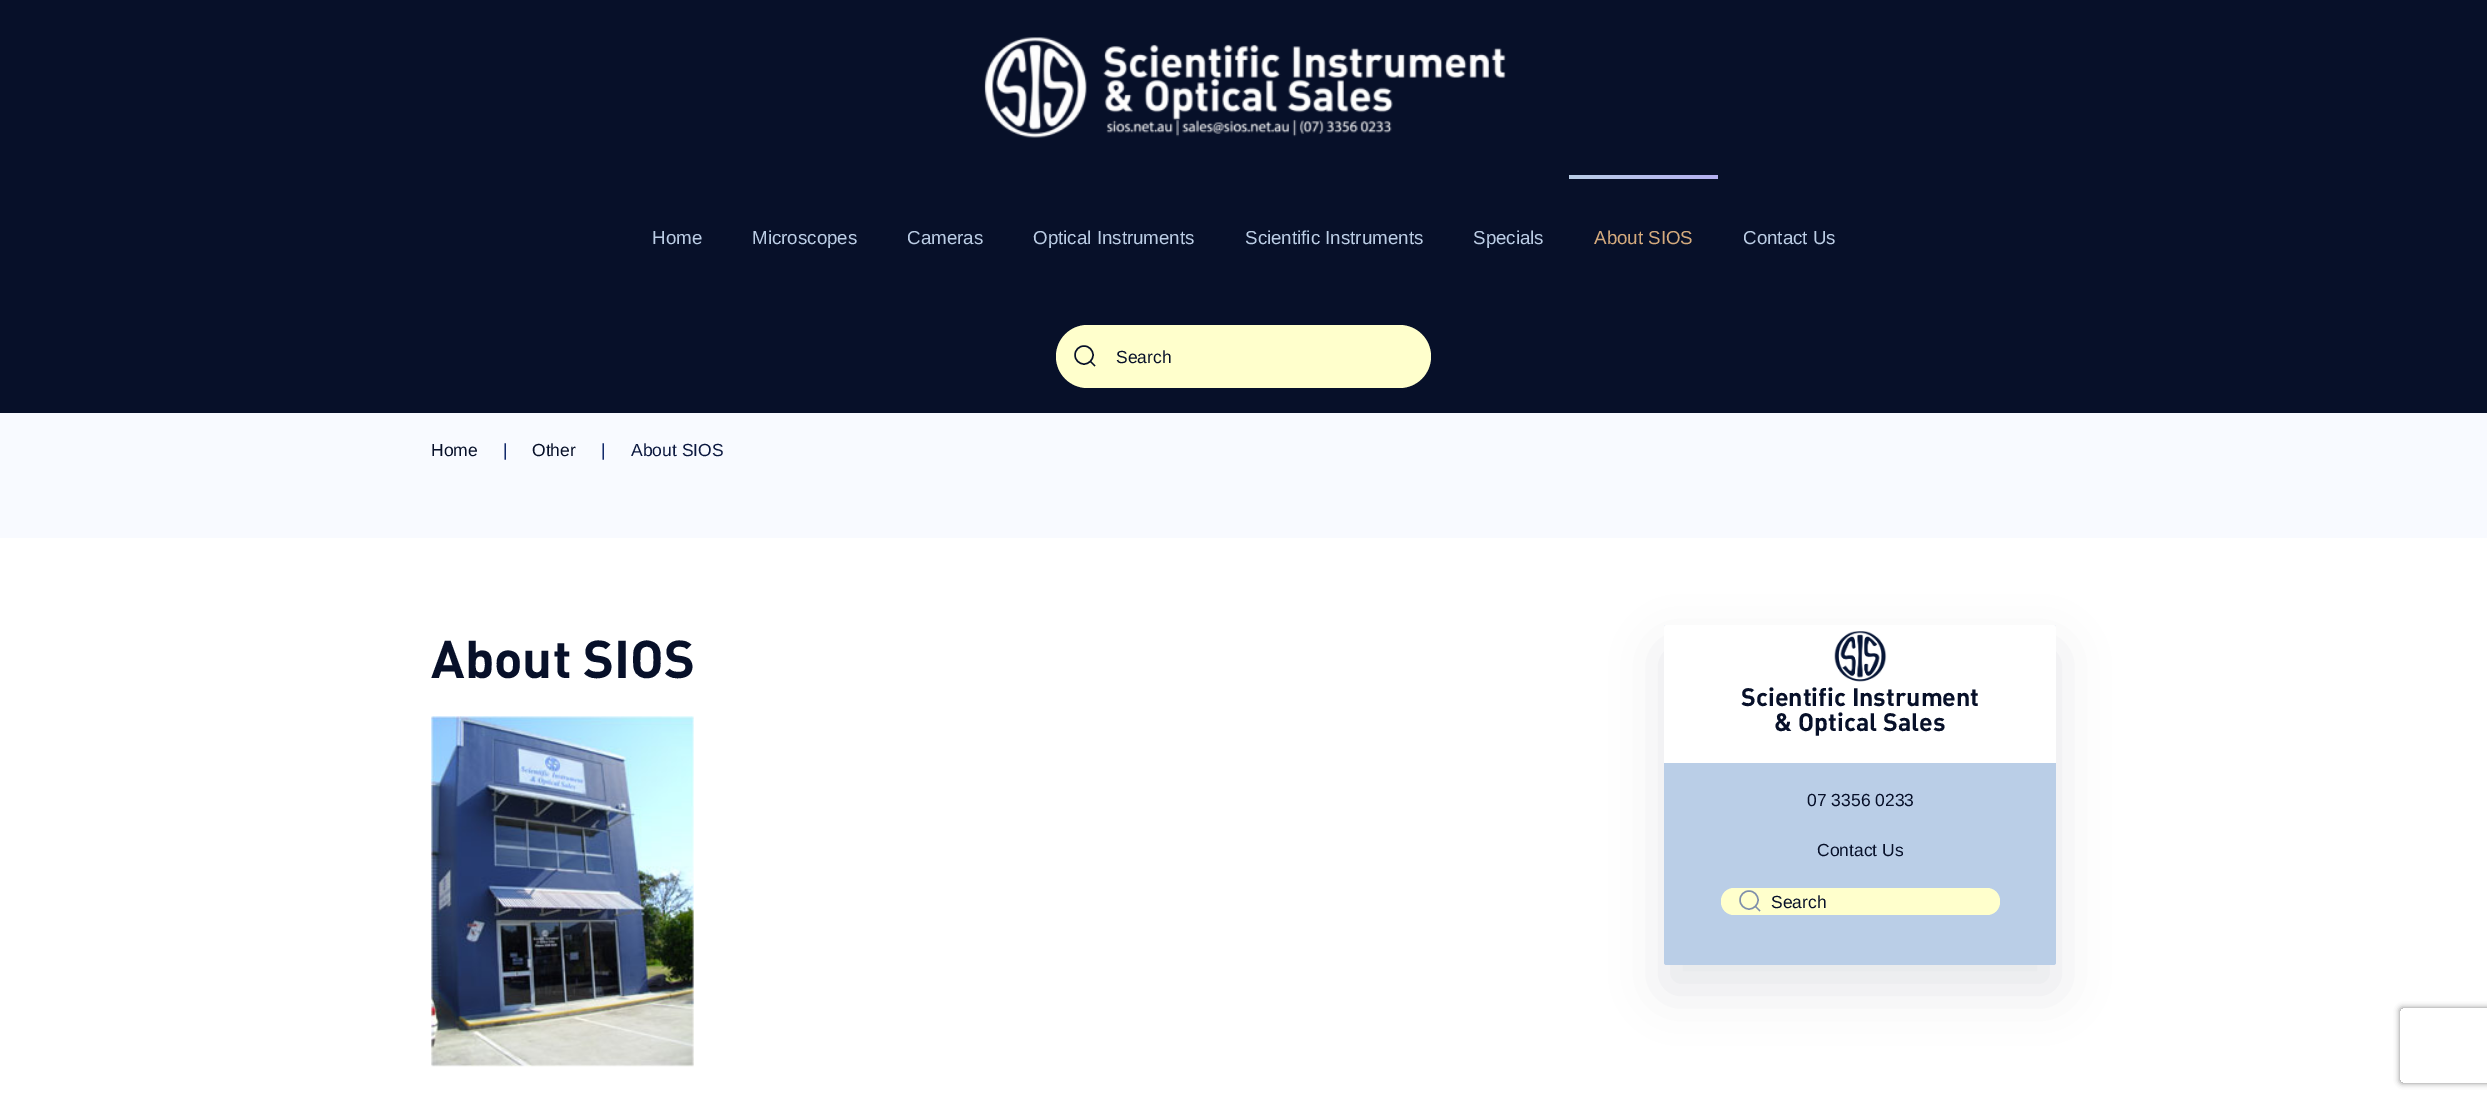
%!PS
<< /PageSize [2487 1099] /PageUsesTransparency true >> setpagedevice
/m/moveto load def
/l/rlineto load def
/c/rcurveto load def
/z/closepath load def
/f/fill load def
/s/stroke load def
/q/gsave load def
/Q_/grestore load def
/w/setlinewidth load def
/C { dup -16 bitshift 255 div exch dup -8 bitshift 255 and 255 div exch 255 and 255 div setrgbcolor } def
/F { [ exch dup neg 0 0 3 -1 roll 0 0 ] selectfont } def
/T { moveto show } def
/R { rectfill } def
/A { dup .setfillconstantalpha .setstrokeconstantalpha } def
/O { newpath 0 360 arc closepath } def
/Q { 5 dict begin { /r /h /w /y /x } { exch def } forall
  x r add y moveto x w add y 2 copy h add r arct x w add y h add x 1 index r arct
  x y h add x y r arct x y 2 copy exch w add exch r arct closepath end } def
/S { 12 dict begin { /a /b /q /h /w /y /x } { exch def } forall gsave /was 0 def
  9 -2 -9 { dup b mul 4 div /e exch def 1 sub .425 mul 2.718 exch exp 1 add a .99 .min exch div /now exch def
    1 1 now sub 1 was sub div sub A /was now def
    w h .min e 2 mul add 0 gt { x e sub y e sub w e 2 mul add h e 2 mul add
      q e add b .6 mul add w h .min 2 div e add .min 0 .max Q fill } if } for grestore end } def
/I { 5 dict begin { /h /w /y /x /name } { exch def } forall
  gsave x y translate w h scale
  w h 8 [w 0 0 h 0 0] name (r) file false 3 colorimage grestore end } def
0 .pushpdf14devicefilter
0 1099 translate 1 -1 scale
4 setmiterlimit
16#FFFFFF C
0 0 2487 1099 R
16#071029 C
0 0 2487 413 R
(1.rgb) 984 37 522 101 I
/LiberationSans-Regular 18.75 F
16#BBCDE5 C
(Home) 652 244 T
(Microscopes) 752 244 T
(Cameras) 907 244 T
(Optical Instruments) 1033 244 T
(Scientific Instruments) 1245 244 T
(Specials) 1473 244 T
q 1569 175 m 149 0 l 0 4 l -149 0 l z clip newpath
<< /ShadingType 2 /ColorSpace /DeviceRGB /Coords [1605 215 1681 139] /Extend [true true] /Function << /FunctionType 2 /Domain [0 1] /C0 [.729 .808 .906] /C1 [.706 .69 .945] /N 1 >> >> shfill Q_
16#D4AA7D C
(About SIOS) 1594 244 T
16#BBCDE5 C
(Contact Us) 1743 244 T
16#FFFFCC C
1056 325 375 63 31.5 Q f
16#071029 C
1.4 w
1084 355 9 O s
1090 361 m 5 5 l z s
/LiberationSans-Regular 17.5 F
(Search) 1116 363 T
16#F8FAFF C
0 413 2487 125 R
16#071029 C
(Home) 431 456 T
16#12296A C
(|) 503 456 T
16#071029 C
(Other) 532 456 T
16#12296A C
(|) 601 456 T
16#0B183F C
(About SIOS) 631 456 T
/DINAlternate-Bold 52.5 F
16#071029 C
(About SIOS) 431 678 T
(2.rgb) 431 716 263 351 I
16#000F27 C
1664 650 392 340 2.5 25 .1 S
16#BACEE7 C
1664 625 392 340 2.5 Q f
16#FFFFFF C
1666.5 625 m 387 0 l 1.5 0 2.5 1 2.5 2.5 c 0 135.5 l -392 0 l 0 -135.5 l 0 -1.5 1 -2.5 2.5 -2.5 c z f
(3.rgb) 1834 631 53 51 I
/DINAlternate-Bold 25 F
16#071029 C
(Scientific Instrument) 1741 706 T
(& Optical Sales) 1774 731 T
/LiberationSans-Regular 17.5 F
(07 3356 0233) 1807 806 T
(Contact Us) 1817 856 T
16#FFFFCC C
1721 888 279 27 13 Q f
16#7F8FAB C
1749 900 9 O s
1755 906 m 5 5 l z s
16#071029 C
(Search) 1771 908 T
q
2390 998 m 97 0 l 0 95 l -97 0 l z 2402.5 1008 m 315 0 l 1.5 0 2.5 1 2.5 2.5 c 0 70 l 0 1.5 -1 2.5 -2.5 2.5 c -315 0 l -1.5 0 -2.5 -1 -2.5 -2.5 c 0 -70 l 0 -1.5 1 -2.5 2.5 -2.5 c z eoclip newpath
16#808080 C
2400 1008 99 75 2.5 3 1 S
Q_
.poppdf14devicefilter showpage
